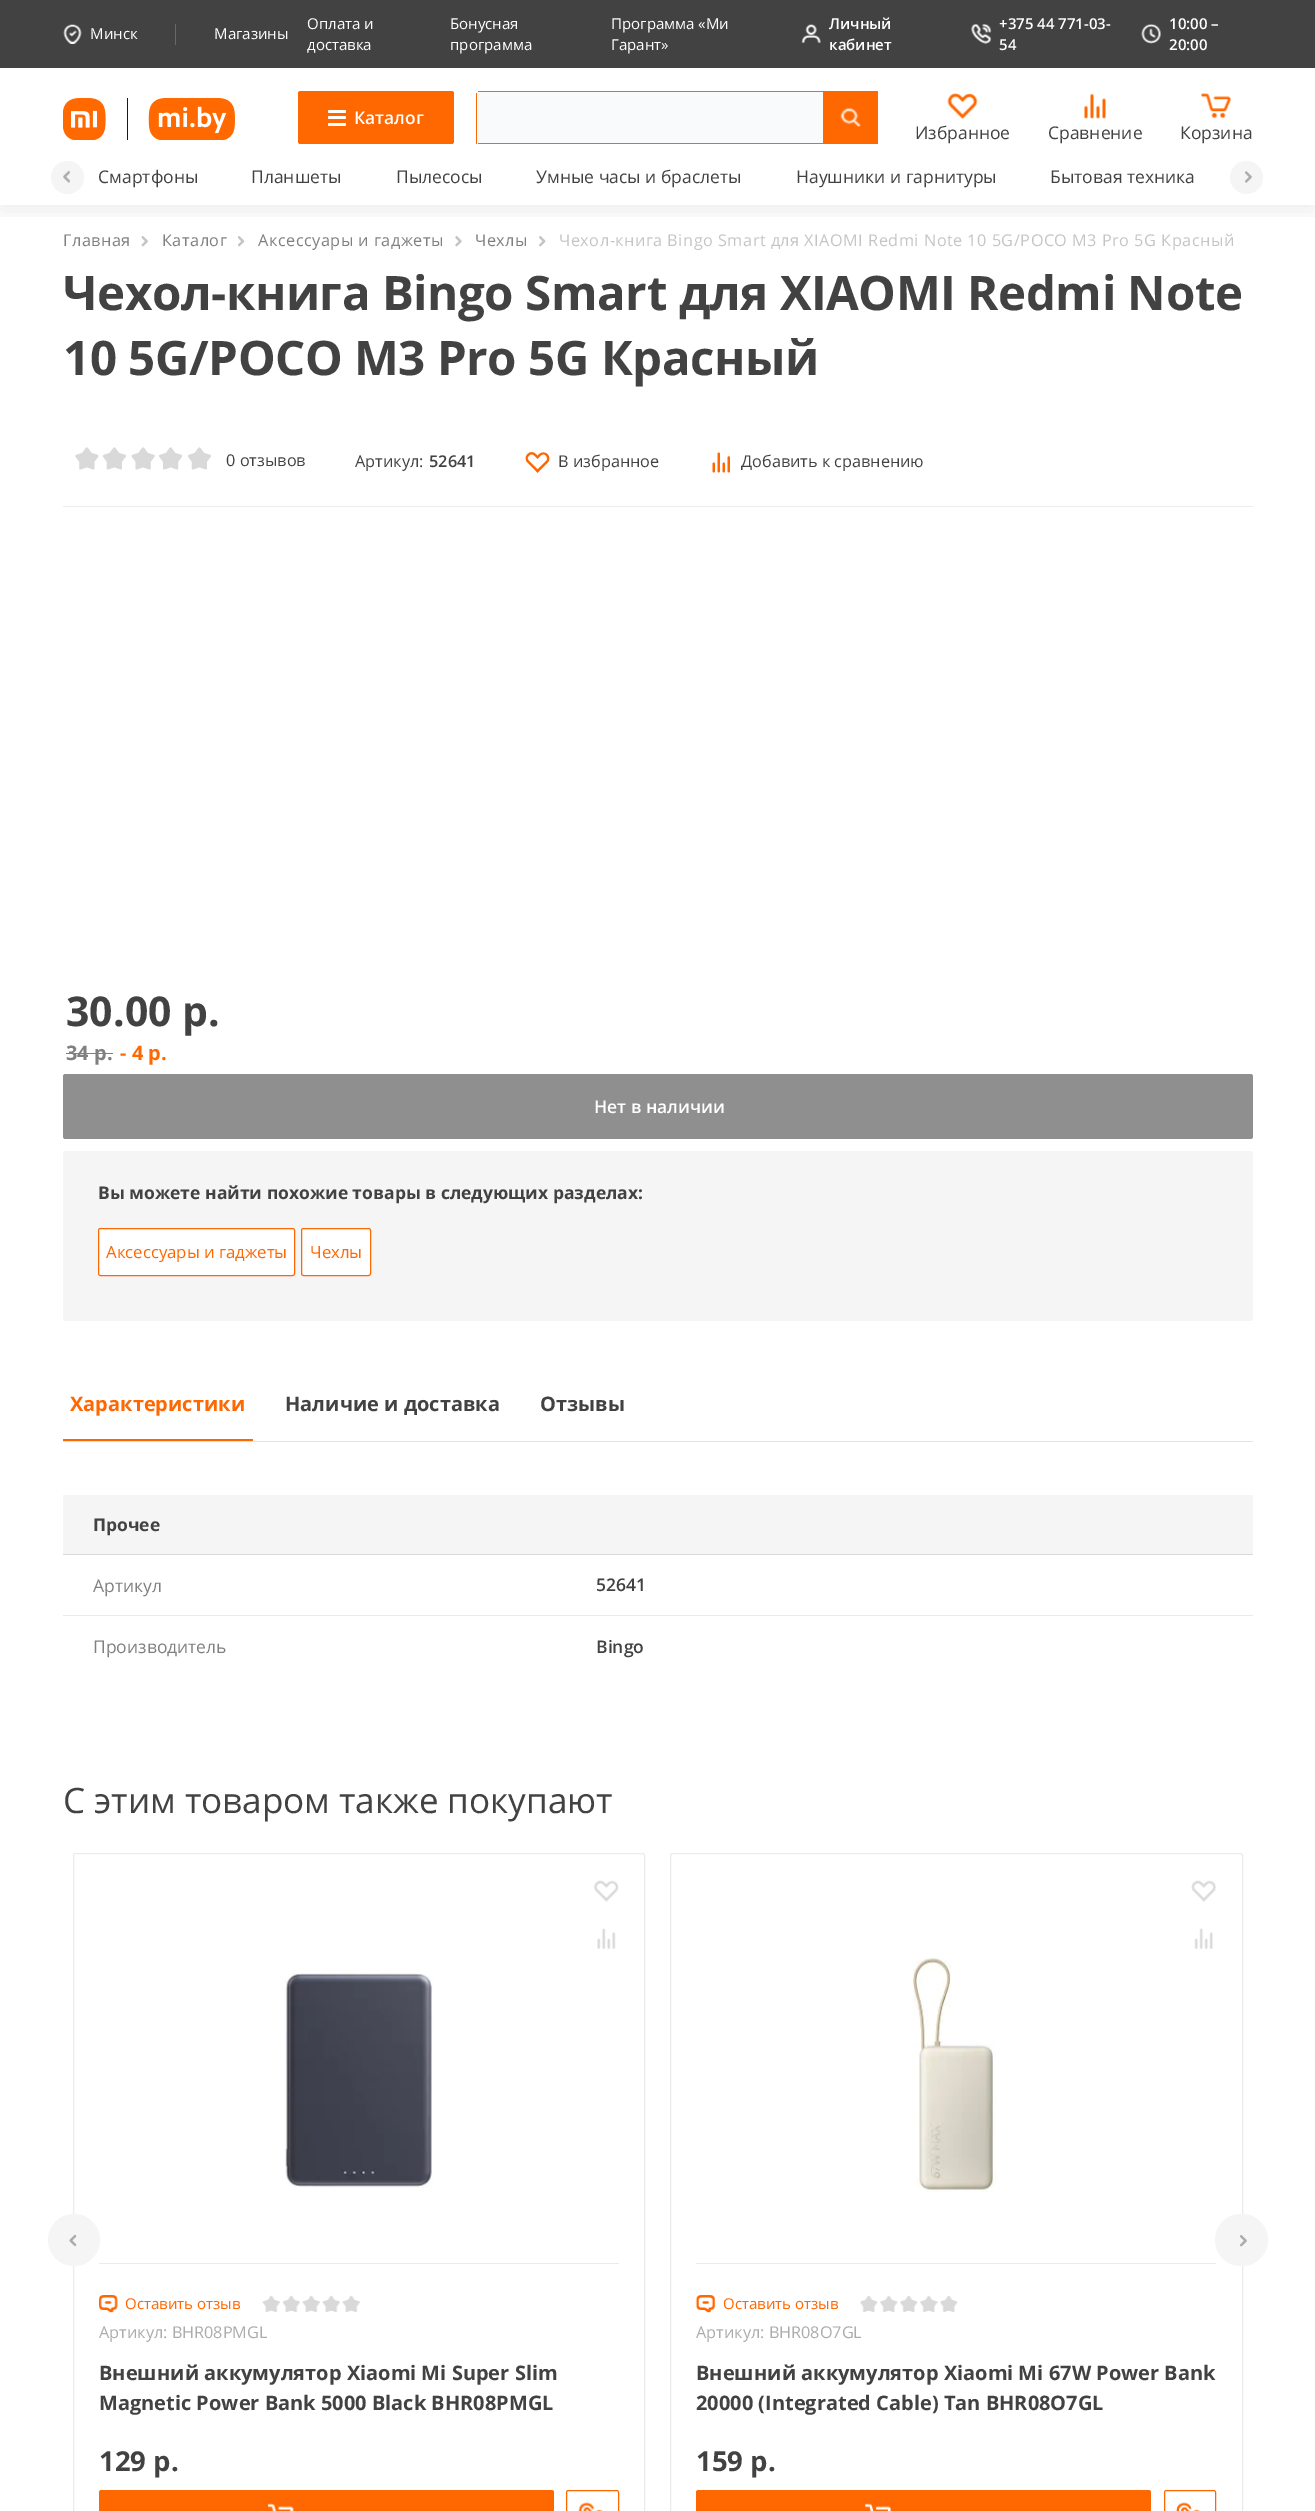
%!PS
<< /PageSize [1315 2511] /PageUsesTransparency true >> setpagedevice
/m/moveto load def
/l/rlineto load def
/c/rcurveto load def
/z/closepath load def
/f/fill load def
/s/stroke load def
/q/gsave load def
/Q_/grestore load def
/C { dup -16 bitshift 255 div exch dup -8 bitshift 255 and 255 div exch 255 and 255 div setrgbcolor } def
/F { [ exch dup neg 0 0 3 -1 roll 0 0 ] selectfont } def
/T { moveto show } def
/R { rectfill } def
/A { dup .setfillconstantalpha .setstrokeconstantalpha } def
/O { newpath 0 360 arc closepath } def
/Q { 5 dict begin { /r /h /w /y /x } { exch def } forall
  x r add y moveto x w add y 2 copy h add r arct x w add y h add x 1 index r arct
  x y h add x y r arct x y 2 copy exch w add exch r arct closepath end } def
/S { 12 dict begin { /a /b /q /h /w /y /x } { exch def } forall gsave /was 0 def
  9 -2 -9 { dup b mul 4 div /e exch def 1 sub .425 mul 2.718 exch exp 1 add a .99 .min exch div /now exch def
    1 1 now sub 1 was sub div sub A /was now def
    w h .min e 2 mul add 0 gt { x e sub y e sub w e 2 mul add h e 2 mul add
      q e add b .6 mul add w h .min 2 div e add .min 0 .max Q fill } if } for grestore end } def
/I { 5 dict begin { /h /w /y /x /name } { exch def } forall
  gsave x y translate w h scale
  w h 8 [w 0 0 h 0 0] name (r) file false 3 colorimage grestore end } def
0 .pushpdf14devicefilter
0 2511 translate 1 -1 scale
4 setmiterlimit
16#FFFFFF C
0 0 1315 2511 R
(12.rgb) 141 236 7 11 I
(13.rgb) 238 236 7 11 I
(14.rgb) 455 236 7 11 I
(15.rgb) 539 236 7 11 I
q
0 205 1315 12 rectclip
16#000000 C
0 5 1315 205 0 12.5 .07 S
Q_
16#424242 C
0 0 1315 68 R
16#686868 C
175 24 1 21 R
(1.rgb) 63 24 19 20 I
/OpenSans-Regular 15 F
16#FFFFFF C
(Минск) 90 39 T
(Магазины) 214 39 T
(Оплата и) 307 29 T
(доставка) 307 50 T
(Бонусная) 450 29 T
(программа) 450 50 T
(Программа «Ми) 611 29 T
(Гарант») 611 50 T
(2.rgb) 801 24 20 19 I
/OpenSans-SemiBold 15 F
(Личный) 829 29 T
(кабинет) 829 50 T
(3.rgb) 971 24 21 20 I
(+375 44 771-03-) 999 29 T
(54) 999 50 T
(4.rgb) 1141 24 20 20 I
(10:00 –) 1169 29 T
(20:00) 1169 50 T
(5.rgb) 63 98 172 42 I
16#FF6700 C
298 91 156 53 2.5 Q f
16#FFFFFF C
328 110 18 3 1.5 Q f
328 116 18 3 1.5 Q f
328 123 18 3 1.5 Q f
/OpenSans-SemiBold 17.5 F
(Каталог) 354 124 T
16#F8FAFC C
477 91 m 346 0 l 0 53 l -346 0 l -.5 0 -1 -.5 -1 -1 c 0 -51 l 0 -.5 .5 -1 1 -1 c z f
16#FF6700 C
478 91 345 1 R
478 143 345 1 R
476 93 1 51 R
823 91 m 54 0 l .5 0 1 .5 1 1 c 0 51 l 0 .5 -.5 1 -1 1 c -54 0 l z f
(6.rgb) 840 108 21 19 I
(7.rgb) 947 93 31 27 I
/OpenSans-Regular 17.5 F
16#424242 C
(Избранное) 915 139 T
(8.rgb) 1084 94 22 25 I
(Сравнение) 1048 139 T
(9.rgb) 1201 93 30 26 I
(Корзина) 1180 139 T
16#F5F5F5 C
67.5 177.5 16.5 O f
(10.rgb) 63 170 7 13 I
16#424242 C
(Смартфоны) 98 183 T
(Планшеты) 251 183 T
(Пылесосы) 396 183 T
(Умные часы и браслеты) 536 183 T
(Наушники и гарнитуры) 796 183 T
(Бытовая техника) 1050 183 T
16#F5F5F5 C
1246.5 177.5 16.5 O f
(11.rgb) 1245 171 7 12 I
/OpenSans-Regular 16.25 F
16#808080 C
63 246 m .5 0 (Главная) ashow
162 246 m .5 0 (Каталог) ashow
258 246 m .5 0 (Аксессуары и гаджеты) ashow
475 246 m .5 0 (Чехлы) ashow
16#C5C5C5 C
559 246 m .5 0 (Чехол-книга Bingo Smart для XIAOMI Redmi Note 10 5G/POCO M3 Pro 5G Красный) ashow
/OpenSans-Bold 47.5 F
16#424242 C
63 310 m -.45 0 (Чехол-книга Bingo Smart для XIAOMI Redmi Note) ashow
63 375 m -.45 0 (10 5G/POCO M3 Pro 5G Красный) ashow
16#ECECEC C
63 506 1190 1 R
(16.rgb) 75 447 24 23 I
(17.rgb) 103 447 23 23 I
(18.rgb) 131 447 24 23 I
(19.rgb) 159 447 23 23 I
(17.rgb) 188 447 23 23 I
/OpenSans-Regular 16.25 F
16#424242 C
(0 отзывов) 226 466 T
(Артикул:) 355 467 T
/OpenSans-SemiBold 16.25 F
(52641) 429 467 T
(20.rgb) 525 452 25 21 I
/OpenSans-Regular 16.25 F
(В избранное) 558 467 T
(21.rgb) 712 452 18 21 I
(Добавить к сравнению) 741 467 T
/OpenSans-Bold 41 F
(30.00 р.) 66 1026 T
/OpenSans-Bold 20 F
16#808080 C
(34 р.) 66 1060 T
66 1053 47 1 R
16#FF6700 C
(- 4 р.) 120 1060 T
16#8F8F8F C
63 1074 1190 65 2.5 Q f
/OpenSans-SemiBold 17.5 F
16#FFFFFF C
(Нет в наличии) 594 1113 T
16#F5F5F5 C
63 1151 1190 170 2.5 Q f
/OpenSans-Bold 17.5 F
16#424242 C
(Вы можете найти похожие товары в следующих разделах:) 98 1199 T
16#FFFFFF C
98.5 1228.5 196 47 2 Q q f Q_
16#FF6700 C
s
/OpenSans-Regular 16.75 F
(Аксессуары и гаджеты) 106 1258 T
16#FFFFFF C
301.5 1228.5 69 47 2 Q q f Q_
16#FF6700 C
s
(Чехлы) 310 1258 T
16#E4E4E4 C
63 1441 1190 1 R
/OpenSans-Bold 20 F
16#FF6700 C
(Характеристики) 70 1411 T
63 1439 190 2 R
16#424242 C
(Наличие и доставка) 285 1411 T
(Отзывы) 540 1411 T
16#F5F5F5 C
63 1495 1190 59 R
16#D9D9D9 C
63 1554 1190 1 R
/OpenSans-Bold 17.5 F
16#424242 C
(Прочее) 93 1531 T
16#EAEAEA C
63 1615 1190 1 R
/OpenSans-Regular 17.5 F
16#808080 C
(Артикул) 93 1592 T
/OpenSans-SemiBold 17.5 F
16#424242 C
(52641) 596 1591 T
/OpenSans-Regular 17.5 F
16#808080 C
(Производитель) 93 1653 T
/OpenSans-SemiBold 17.5 F
16#424242 C
(Bingo) 596 1653 T
/OpenSans-Regular 35 F
(С этим товаром также покупают) 63 1813 T
16#EBEBEB C
73.5 1853.5 571 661 2 Q s
99 2263 520 1 R
16#F5F5F5 C
74 2240 26 O f
(22.rgb) 69 2234 8 13 I
16#EBEBEB C
670.5 1853.5 572 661 2 Q s
696 2263 520 1 R
16#F5F5F5 C
1215 2214 53 52 26 Q f
(23.rgb) 1240 2235 7 12 I
(24.rgb) 593 1880 26 22 I
(25.rgb) 597 1928 19 21 I
(26.rgb) 285 1970 148 218 I
(27.rgb) 99 2295 19 18 I
/OpenSans-Regular 15 F
16#FF6700 C
(Оставить отзыв) 125 2309 T
(28.rgb) 262 2295 18 17 I
(29.rgb) 283 2295 17 17 I
(28.rgb) 302 2295 18 17 I
(30.rgb) 322 2295 18 17 I
(28.rgb) 342 2295 18 17 I
/OpenSans-Regular 16.25 F
16#ACACAC C
(Артикул: BHR08PMGL) 99 2338 T
/OpenSans-Bold 20 F
16#424242 C
(Внешний аккумулятор Xiaomi Mi Super Slim) 99 2380 T
(Magnetic Power Bank 5000 Black BHR08PMGL) 99 2410 T
/OpenSans-Bold 27.5 F
(129 р.) 99 2471 T
16#FF6700 C
99 2490 455 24 2.5 Q f
(31.rgb) 268 2503 26 8 I
566.5 2490.5 52 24 2 Q s
(32.rgb) 578 2502 25 9 I
(33.rgb) 1191 1880 26 22 I
(34.rgb) 1194 1928 19 21 I
(35.rgb) 912 1958 84 234 I
(36.rgb) 695 2295 21 18 I
/OpenSans-Regular 15 F
(Оставить отзыв) 723 2309 T
(37.rgb) 860 2295 18 17 I
(38.rgb) 880 2295 18 17 I
(37.rgb) 900 2295 18 17 I
(39.rgb) 920 2295 18 17 I
(37.rgb) 940 2295 18 17 I
/OpenSans-Regular 16.25 F
16#ACACAC C
(Артикул: BHR08O7GL) 696 2338 T
/OpenSans-Bold 20 F
16#424242 C
(Внешний аккумулятор Xiaomi Mi 67W Power Bank) 696 2380 T
(20000 \(Integrated Cable\) Tan BHR08O7GL) 696 2410 T
/OpenSans-Bold 27.5 F
(159 р.) 696 2471 T
16#FF6700 C
696 2490 455 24 2.5 Q f
(40.rgb) 865 2503 26 8 I
1164.5 2490.5 51 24 2 Q s
(41.rgb) 1176 2502 24 9 I
.poppdf14devicefilter showpage
